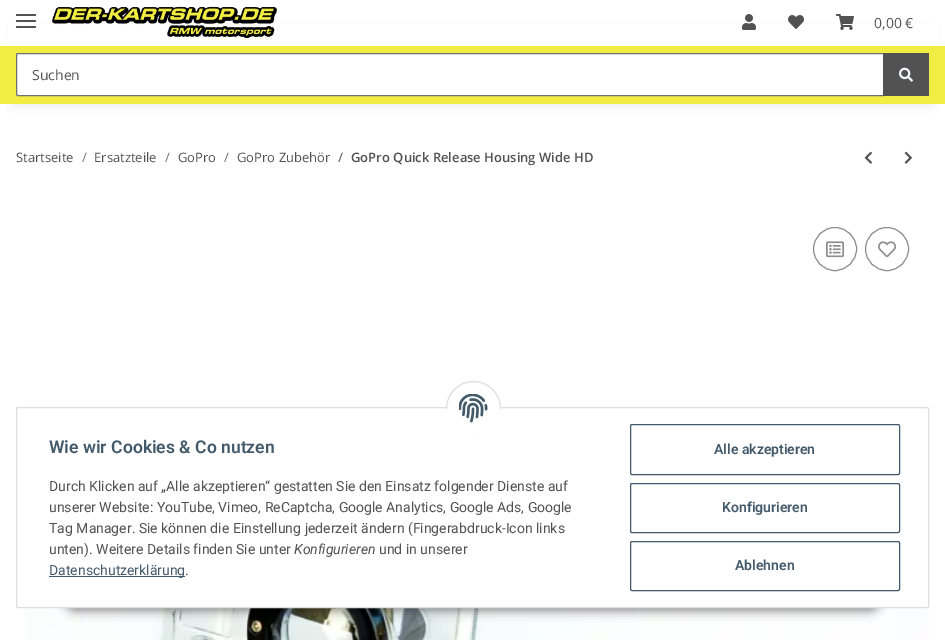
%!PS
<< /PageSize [945 640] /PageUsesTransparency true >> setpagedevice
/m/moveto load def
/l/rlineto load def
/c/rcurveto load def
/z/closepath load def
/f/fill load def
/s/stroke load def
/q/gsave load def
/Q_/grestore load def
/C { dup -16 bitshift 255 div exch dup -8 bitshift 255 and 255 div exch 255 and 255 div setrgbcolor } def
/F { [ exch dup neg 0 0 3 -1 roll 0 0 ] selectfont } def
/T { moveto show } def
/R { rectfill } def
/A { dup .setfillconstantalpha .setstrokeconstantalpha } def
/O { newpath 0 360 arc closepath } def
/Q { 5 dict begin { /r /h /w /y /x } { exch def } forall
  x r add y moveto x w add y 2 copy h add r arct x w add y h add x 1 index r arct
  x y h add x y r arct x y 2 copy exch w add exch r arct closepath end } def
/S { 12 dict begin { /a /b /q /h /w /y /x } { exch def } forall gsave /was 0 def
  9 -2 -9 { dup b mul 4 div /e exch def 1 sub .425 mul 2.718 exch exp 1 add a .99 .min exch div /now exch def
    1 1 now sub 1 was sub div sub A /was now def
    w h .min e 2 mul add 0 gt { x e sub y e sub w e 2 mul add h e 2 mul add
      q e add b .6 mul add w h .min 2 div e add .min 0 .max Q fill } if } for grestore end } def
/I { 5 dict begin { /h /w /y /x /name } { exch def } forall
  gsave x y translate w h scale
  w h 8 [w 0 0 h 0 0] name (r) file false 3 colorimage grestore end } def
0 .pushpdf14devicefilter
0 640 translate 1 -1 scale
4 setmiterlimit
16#FFFFFF C
0 0 945 640 R
16#000000 C
12 28 921 80 0 4.5 .06 S
16#FFFFFF C
8 24 929 22 R
16#F2ED42 C
0 46 945 58 R
16#525252 C
16 20 20 2 1 Q f
16 14 20 2 1 Q f
16 26 20 2 1 Q f
(1.rgb) 52 6 225 33 I
(2.rgb) 742 14 14 16 I
(3.rgb) 788 15 16 14 I
(4.rgb) 836 14 18 16 I
/OpenSans-Regular 14 F
(0,00 €) 874 28 T
16#FFFFFF C
18 53.5 m 865.5 0 l 0 42 l -865.5 0 l -1 0 -1.5 -.5 -1.5 -1.5 c 0 -39 l 0 -1 .5 -1.5 1.5 -1.5 c z q f Q_
16#707070 C
s
16#525252 C
(Suchen) 32 80 T
883 53 46 43 R
(5.rgb) 899 67 14 15 I
/OpenSans-Regular 13 F
(Startseite) 16 162 T
16#707070 C
(/) 82 162 T
16#525252 C
(Ersatzteile) 94 162 T
16#707070 C
(/) 165 162 T
16#525252 C
(GoPro) 178 162 T
16#707070 C
(/) 224 162 T
16#525252 C
(GoPro Zubehör) 237 162 T
/OpenSans-SemiBold 13 F
16#707070 C
(/) 338 162 T
16#525252 C
(GoPro Quick Release Housing Wide HD) 351 162 T
(6.rgb) 864 151 8 13 I
(7.rgb) 904 151 8 13 I
16#8D8D8D C
835 249 21.5 O s
(8.rgb) 826 241 18 17 I
887 249 21.5 O s
(9.rgb) 878 241 18 17 I
(10.rgb) 25 606 904 34 I
16#000000 C
63 579 819 32 16 5 .45 S
16#FFFFFF C
16.5 407.5 912 200 1.5 Q q f Q_
16#DDDDDD C
s
16#FFFFFF C
473.5 408.5 27 O q f Q_
16#DDDDDD C
s
16#FFFFFF C
446 409 55 27 R
(11.rgb) 459 394 29 29 I
/Roboto-SemiBold 17.6 F
16#435A6B C
(Wie wir Cookies & Co nutzen) 49 453 T
/Roboto-Regular 14 F
16#525252 C
(Durch Klicken auf „Alle akzeptieren“ gestatten Sie den Einsatz folgender Dienste auf) 49 491 T
(unserer Website: YouTube, Vimeo, ReCaptcha, Google Analytics, Google Ads, Google) 49 512 T
(Tag Manager. Sie können die Einstellung jederzeit ändern \(Fingerabdruck-Icon links) 49 533 T
(unten\). Weitere Details finden Sie unter) 49 554 T
/Roboto-Italic 14 F
(Konfigurieren) 294 554 T
/Roboto-Regular 14 F
(und in unserer) 379 554 T
16#435A6B C
49 576 136 1 R
(Datenschutzerklärung) 49 575 T
16#525252 C
(.) 185 575 T
16#435A6B C
630.5 424.5 269 50 1.5 Q s
/Roboto-SemiBold 14 F
(Alle akzeptieren) 714 454 T
630.5 483.5 269 49 1.5 Q s
(Konfigurieren) 722 512 T
630.5 541.5 269 49 1.5 Q s
(Ablehnen) 735 570 T
.poppdf14devicefilter showpage
